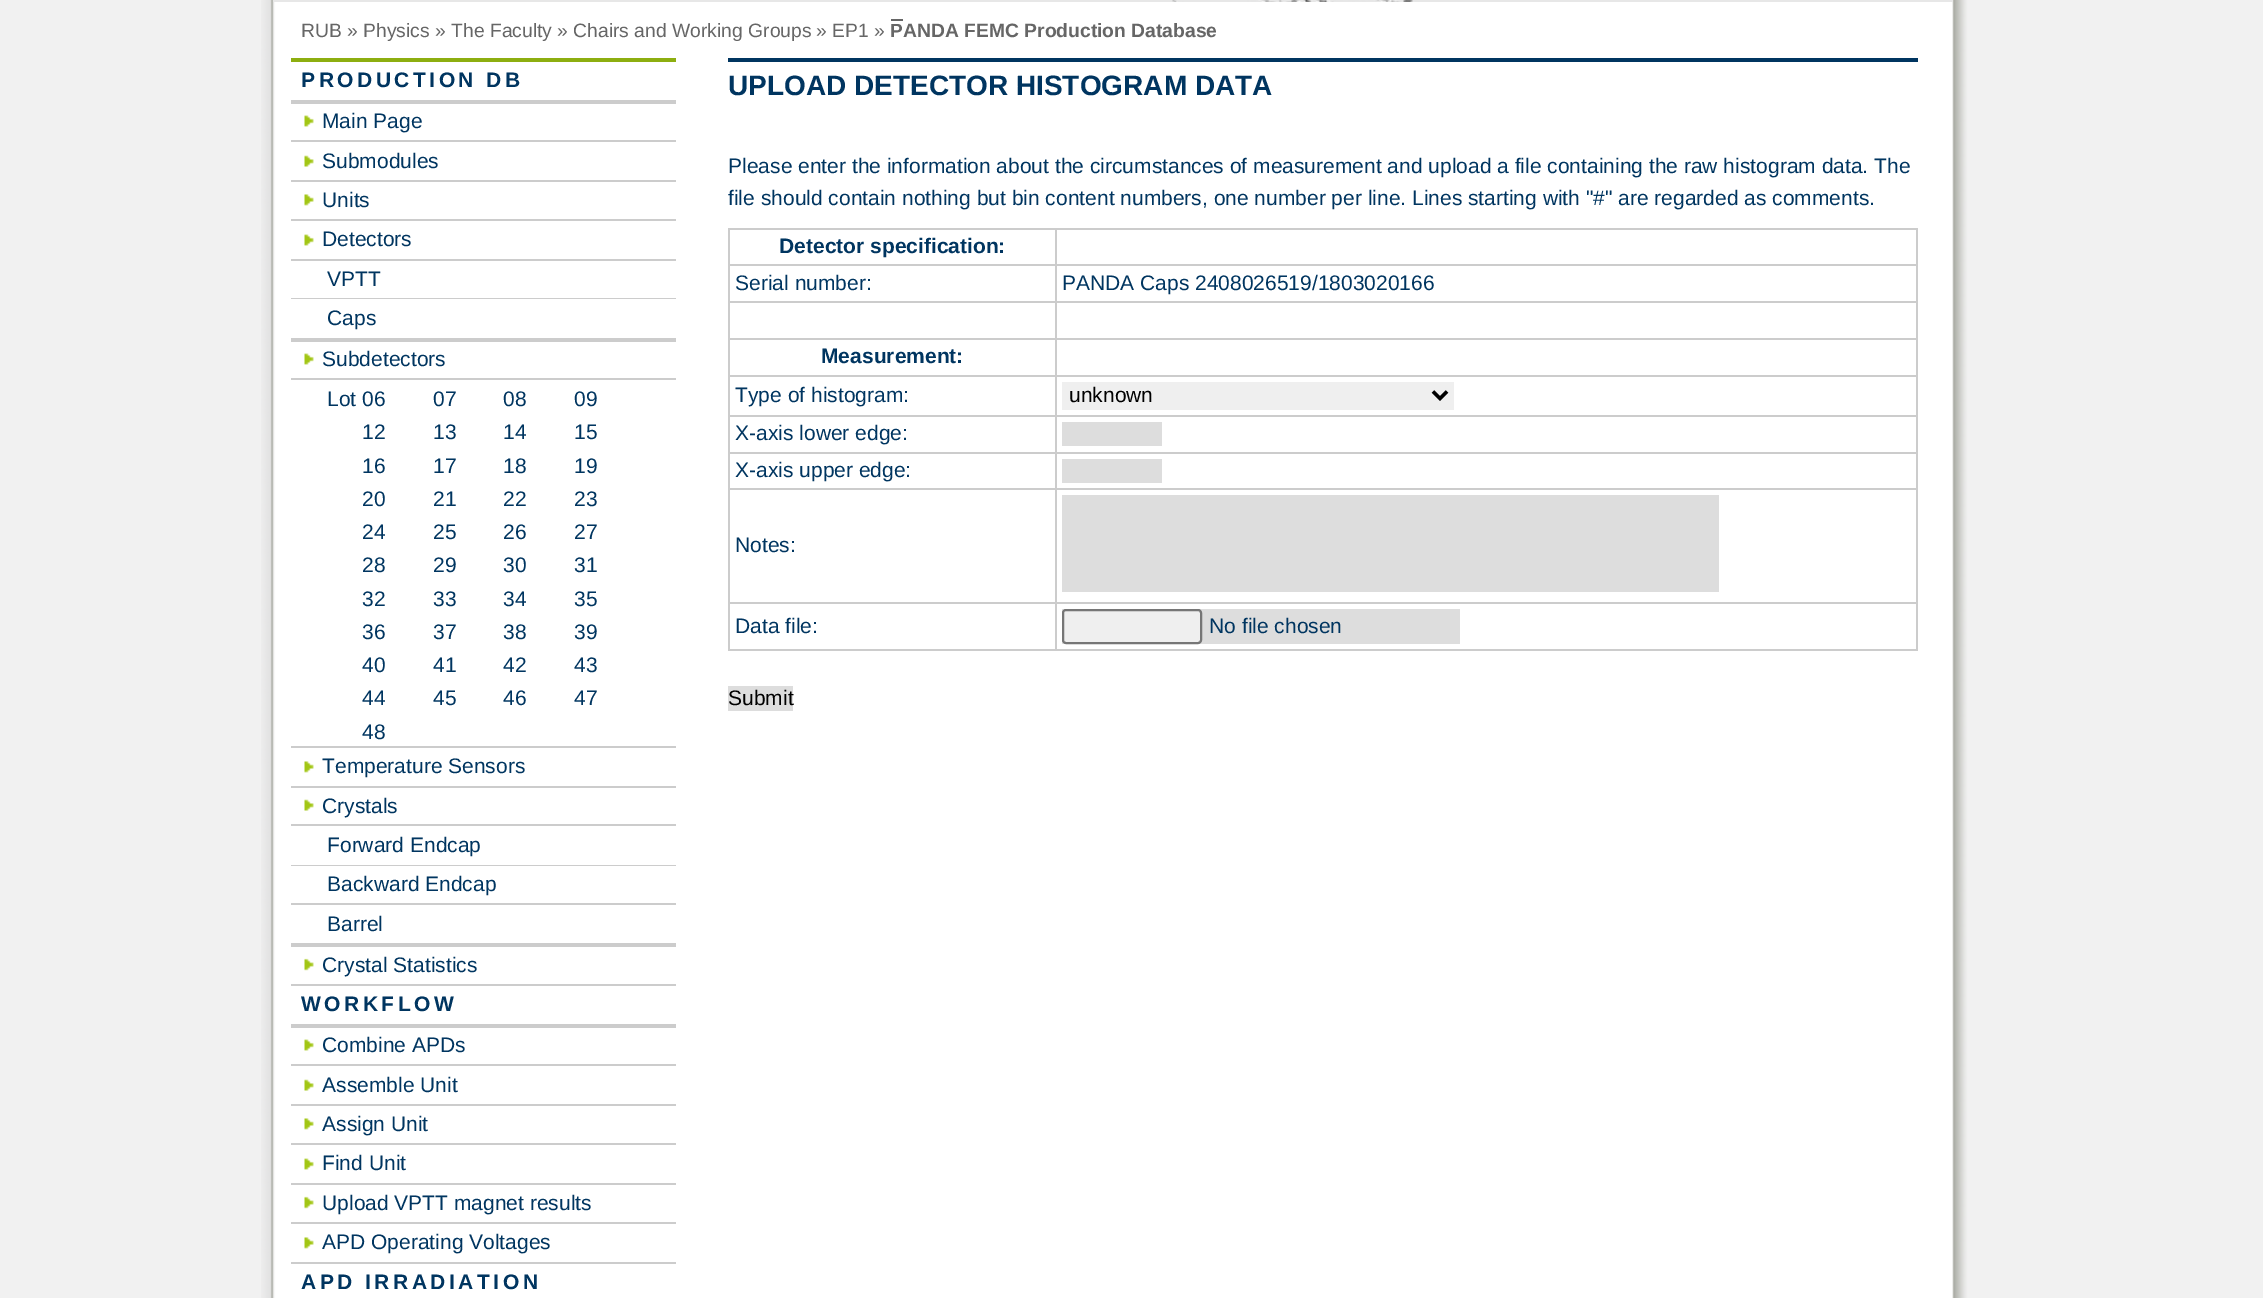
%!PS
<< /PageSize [2263 1298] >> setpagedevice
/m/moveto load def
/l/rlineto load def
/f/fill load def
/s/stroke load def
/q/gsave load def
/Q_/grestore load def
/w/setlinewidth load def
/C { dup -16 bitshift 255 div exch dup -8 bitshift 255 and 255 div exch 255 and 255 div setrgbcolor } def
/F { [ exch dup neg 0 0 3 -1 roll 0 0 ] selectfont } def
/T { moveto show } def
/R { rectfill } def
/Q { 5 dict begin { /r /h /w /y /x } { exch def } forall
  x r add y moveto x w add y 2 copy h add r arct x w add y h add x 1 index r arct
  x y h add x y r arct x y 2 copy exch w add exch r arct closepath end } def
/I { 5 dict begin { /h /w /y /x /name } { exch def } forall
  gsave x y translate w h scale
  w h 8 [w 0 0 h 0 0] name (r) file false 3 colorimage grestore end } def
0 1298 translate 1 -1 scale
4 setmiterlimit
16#F1F1F1 C
0 0 2263 1298 R
(1.rgb) 261 0 1691 1298 I
(2.rgb) 1952 0 57 1298 I
(3.rgb) 273 0 1680 2 I
/LiberationSans-Regular 19.3 F
16#666666 C
(RUB » Physics » The Faculty » Chairs and Working Groups) 301 37 T
(» EP1 ») 816 37 T
/LiberationSans-Bold 19 F
(P) 890 37 T
891 19 12 2 R
/LiberationSans-Bold 19.3 F
(ANDA FEMC Production Database) 903 37 T
16#8DAE10 C
291 58 385 4 R
16#CCCCCC C
291 100 385 4 R
/LiberationSans-Bold 21 F
16#003560 C
301 87 m 3.5 0 (PRODUCTION DB) ashow
16#CCCCCC C
291 984 385 2 R
(4.rgb) 304 115 10 12 I
/LiberationSans-Regular 21 F
16#003560 C
(Main Page) 322 128 T
16#CCCCCC C
291 140 385 2 R
(5.rgb) 304 155 10 12 I
16#003560 C
(Submodules) 322 168 T
16#CCCCCC C
291 180 385 2 R
(6.rgb) 304 194 10 12 I
16#003560 C
(Units) 322 207 T
16#CCCCCC C
291 219 385 2 R
(4.rgb) 304 234 10 12 I
16#003560 C
(Detectors) 322 246 T
16#CCCCCC C
291 259 385 2 R
291 298 385 1 R
16#003560 C
(VPTT) 327 286 T
16#CCCCCC C
291 338 385 4 R
16#003560 C
(Caps) 327 325 T
(4.rgb) 304 353 10 12 I
(Subdetectors) 322 366 T
16#CCCCCC C
291 378 385 2 R
16#003560 C
(Lot 06) 327 406 T
(07) 433 406 T
(08) 503 406 T
(09) 574 406 T
(12) 362 439 T
(13) 433 439 T
(14) 503 439 T
(15) 574 439 T
(16) 362 473 T
(17) 433 473 T
(18) 503 473 T
(19) 574 473 T
(20) 362 506 T
(21) 433 506 T
(22) 503 506 T
(23) 574 506 T
(24) 362 539 T
(25) 433 539 T
(26) 503 539 T
(27) 574 539 T
(28) 362 572 T
(29) 433 572 T
(30) 503 572 T
(31) 574 572 T
(32) 362 606 T
(33) 433 606 T
(34) 503 606 T
(35) 574 606 T
(36) 362 639 T
(37) 433 639 T
(38) 503 639 T
(39) 574 639 T
(40) 362 672 T
(41) 433 672 T
(42) 503 672 T
(43) 574 672 T
(44) 362 705 T
(45) 433 705 T
(46) 503 705 T
(47) 574 705 T
(48) 362 739 T
16#CCCCCC C
291 746 385 2 R
(6.rgb) 304 761 10 12 I
16#003560 C
(Temperature Sensors) 322 773 T
16#CCCCCC C
291 786 385 2 R
(5.rgb) 304 799 10 12 I
16#003560 C
(Crystals) 322 813 T
16#CCCCCC C
291 824 385 2 R
291 865 385 1 R
16#003560 C
(Forward Endcap) 327 852 T
16#CCCCCC C
291 903 385 2 R
16#003560 C
(Backward Endcap) 327 891 T
16#CCCCCC C
291 943 385 4 R
16#003560 C
(Barrel) 327 931 T
(7.rgb) 304 958 10 13 I
(Crystal Statistics) 322 972 T
16#CCCCCC C
291 1024 385 4 R
/LiberationSans-Bold 21 F
16#003560 C
301 1011 m 3.5 0 (WORKFLOW) ashow
16#CCCCCC C
291 1262 385 2 R
(4.rgb) 304 1039 10 12 I
/LiberationSans-Regular 21 F
16#003560 C
(Combine APDs) 322 1052 T
16#CCCCCC C
291 1064 385 2 R
(5.rgb) 304 1079 10 12 I
16#003560 C
(Assemble Unit) 322 1092 T
16#CCCCCC C
291 1104 385 2 R
(6.rgb) 304 1118 10 12 I
16#003560 C
(Assign Unit) 322 1131 T
16#CCCCCC C
291 1143 385 2 R
(4.rgb) 304 1158 10 12 I
16#003560 C
(Find Unit) 322 1170 T
16#CCCCCC C
291 1183 385 2 R
(7.rgb) 304 1196 10 13 I
16#003560 C
(Upload VPTT magnet results) 322 1210 T
16#CCCCCC C
291 1222 385 2 R
(6.rgb) 304 1237 10 12 I
16#003560 C
(APD Operating Voltages) 322 1249 T
/LiberationSans-Bold 21 F
301 1289 m 3.5 0 (APD IRRADIATION) ashow
728 58 1190 4 R
/LiberationSans-Bold 28 F
(UPLOAD DETECTOR HISTOGRAM DATA) 728 95 T
/LiberationSans-Regular 21 F
(Please enter the information about the circumstances of measurement and upload a file containing the raw histogram data. The) 728 173 T
(file should contain nothing but bin content numbers, one number per line. Lines starting with "#" are regarded as comments.) 728 205 T
16#CCCCCC C
1055 228 863 2 R
1055 264 863 2 R
1055 301 863 2 R
1055 338 863 2 R
1055 375 863 2 R
1055 415 863 2 R
1055 452 863 2 R
1055 488 863 2 R
1055 602 863 2 R
1916 602 2 49 R
1055 649 863 2 R
1055 602 2 49 R
728 602 329 2 R
1055 488 2 116 R
728 488 329 2 R
1055 452 2 38 R
728 452 329 2 R
1055 415 2 38 R
728 415 329 2 R
1055 375 2 42 R
728 375 329 2 R
1055 338 2 38 R
728 338 329 2 R
1055 301 2 39 R
728 301 329 2 R
1055 264 2 39 R
728 264 329 2 R
1055 228 2 38 R
728 228 329 2 R
728 649 329 2 R
728 602 2 49 R
728 488 2 116 R
728 452 2 38 R
728 415 2 38 R
728 375 2 42 R
728 338 2 38 R
728 301 2 39 R
728 264 2 39 R
728 228 2 38 R
/LiberationSans-Bold 21 F
16#003560 C
(Detector specification:) 779 253 T
16#CCCCCC C
1916 488 2 116 R
1916 452 2 38 R
1916 415 2 38 R
1916 375 2 42 R
1916 338 2 38 R
1916 301 2 39 R
1916 264 2 39 R
1916 228 2 38 R
/LiberationSans-Regular 21 F
16#003560 C
(Serial number:) 735 290 T
(PANDA Caps 2408026519/1803020166) 1062 290 T
/LiberationSans-Bold 21 F
(Measurement:) 821 363 T
/LiberationSans-Regular 21 F
(Type of histogram:) 735 402 T
16#EFEFEF C
1062 382 392 28 R
16#000000 C
3.5 w
1433 391.5 m 7 7 l 7 -7 l s
(unknown) 1069 402 T
16#003560 C
(X-axis lower edge:) 735 440 T
16#DDDDDD C
1062 422 100 24 R
16#003560 C
(X-axis upper edge:) 735 477 T
16#DDDDDD C
1062 459 100 24 R
16#003560 C
(Notes:) 735 552 T
16#DDDDDD C
1062 495 657 97 R
16#003560 C
(Data file:) 735 633 T
16#DDDDDD C
1062 609 398 35 R
16#EFEFEF C
1063 610 138 33 3 Q q f Q_
16#767676 C
2 w
s
16#003560 C
(No file chosen) 1209 633 T
16#DDDDDD C
728 686 65 25 R
16#000000 C
(Submit) 728 705 T
showpage
